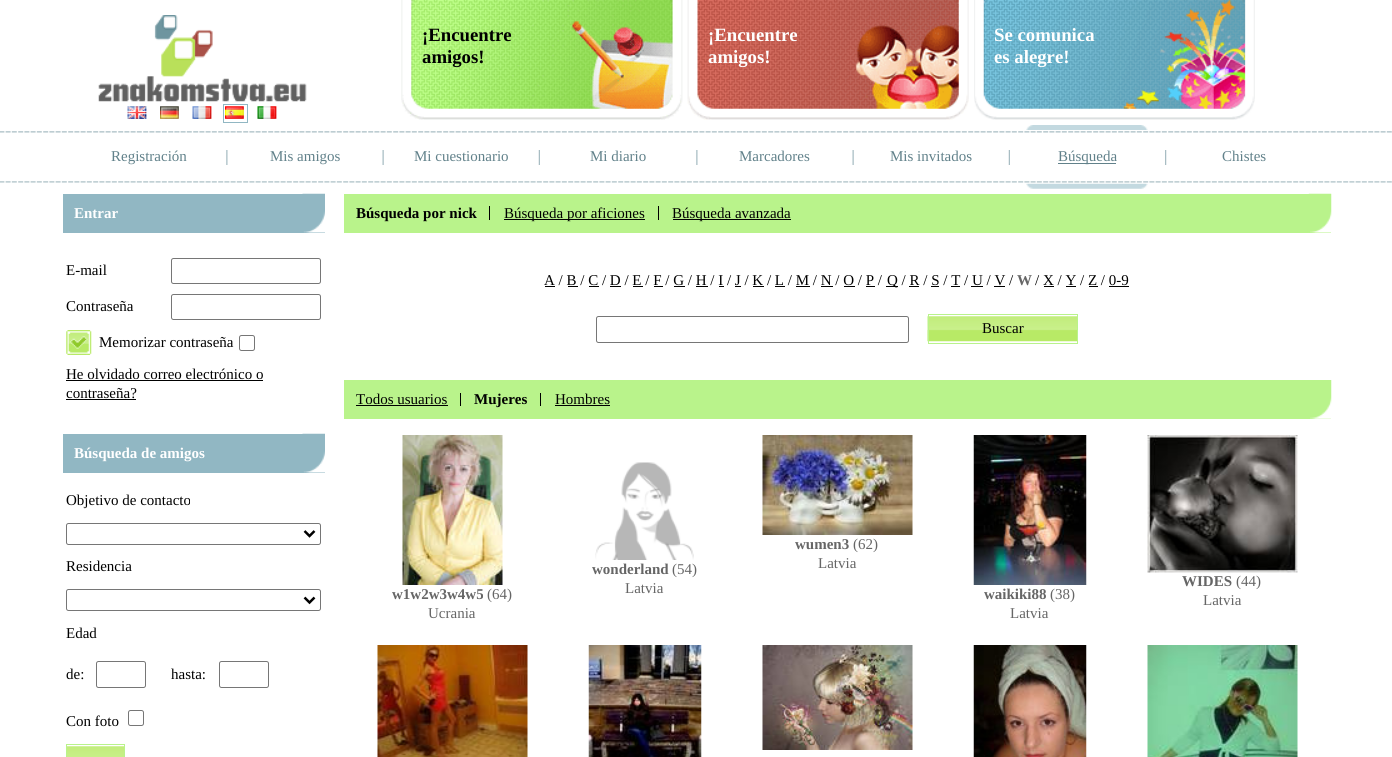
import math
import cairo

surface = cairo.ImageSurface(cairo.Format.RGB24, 1392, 757)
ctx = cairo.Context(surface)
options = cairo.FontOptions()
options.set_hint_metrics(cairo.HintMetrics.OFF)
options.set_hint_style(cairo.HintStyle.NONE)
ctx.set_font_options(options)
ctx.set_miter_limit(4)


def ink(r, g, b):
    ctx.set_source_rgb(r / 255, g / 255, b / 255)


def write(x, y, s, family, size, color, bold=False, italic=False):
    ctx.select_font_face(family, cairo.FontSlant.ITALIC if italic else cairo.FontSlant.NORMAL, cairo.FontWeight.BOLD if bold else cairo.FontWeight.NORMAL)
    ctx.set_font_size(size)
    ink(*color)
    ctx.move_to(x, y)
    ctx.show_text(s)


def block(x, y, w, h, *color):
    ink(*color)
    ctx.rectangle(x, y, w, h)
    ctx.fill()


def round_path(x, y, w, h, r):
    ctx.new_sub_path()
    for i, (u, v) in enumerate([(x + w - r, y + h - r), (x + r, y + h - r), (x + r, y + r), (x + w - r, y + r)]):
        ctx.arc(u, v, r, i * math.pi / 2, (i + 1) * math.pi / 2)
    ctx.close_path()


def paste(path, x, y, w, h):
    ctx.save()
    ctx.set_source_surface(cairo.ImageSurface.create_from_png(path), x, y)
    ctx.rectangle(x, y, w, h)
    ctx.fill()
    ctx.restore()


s1 = dict(family="Liberation Serif", size=18.75, color=(0, 0, 0), bold=True)
s2 = dict(family="Liberation Serif", size=18.75, color=(255, 255, 255), bold=True)
s3 = dict(family="Liberation Serif", size=15, color=(97, 129, 138))
s4 = dict(family="Liberation Serif", size=15, color=(255, 255, 255), bold=True)
s5 = dict(family="Liberation Serif", size=15, color=(0, 0, 0))
s6 = dict(family="Liberation Serif", size=15, color=(0, 0, 0), bold=True)
s7 = dict(family="Liberation Serif", size=15, color=(102, 102, 102), bold=True)
s8 = dict(family="Liberation Serif", size=15, color=(102, 102, 102))

ink(255, 255, 255)
ctx.paint()
paste("pic1.png", 98, 15, 209, 87)
paste("pic2.png", 127, 106, 20, 13)
paste("pic3.png", 160, 106, 19, 13)
paste("pic4.png", 192, 106, 20, 13)
ctx.rectangle(223.5, 104.5, 24, 18)
ink(145, 183, 195)
ctx.set_line_width(1)
ctx.stroke()
paste("pic5.png", 225, 106, 19, 13)
paste("pic6.png", 257, 106, 20, 13)
paste("pic7.png", 401, 0, 282, 120)
write(422, 41, "¡Encuentre", **s1)
write(422, 63, "amigos!", **s1)
paste("pic8.png", 687, 0, 282, 120)
write(708, 41, "¡Encuentre", **s2)
write(708, 63, "amigos!", **s2)
paste("pic9.png", 974, 0, 281, 120)
write(994, 41, "Se comunica", **s2)
write(994, 63, "es alegre!", **s2)
paste("pic10.png", 0, 131, 1392, 52)
paste("pic11.png", 1026, 125, 122, 5)
paste("pic12.png", 226, 150, 2, 15)
paste("pic13.png", 382, 150, 2, 15)
paste("pic14.png", 538, 150, 2, 15)
paste("pic12.png", 696, 150, 2, 15)
paste("pic13.png", 852, 150, 2, 15)
paste("pic14.png", 1008, 150, 2, 15)
paste("pic15.png", 1165, 150, 2, 15)
write(111, 161, "Registración", **s3)
write(270, 161, "Mis amigos", **s3)
write(414, 161, "Mi cuestionario", **s3)
write(590, 161, "Mi diario", **s3)
write(739, 161, "Marcadores", **s3)
write(890, 161, "Mis invitados", **s3)
block(1058, 163, 58, 1, 97, 129, 138)
write(1058, 161, "Búsqueda", **s3)
write(1222, 161, "Chistes", **s3)
paste("pic16.png", 1026, 183, 122, 6)
block(63, 194, 262, 39, 145, 183, 195)
paste("pic17.png", 302, 193, 23, 40)
write(74, 218, "Entrar", **s4)
write(66, 275, "E-mail", **s5)
round_path(171.5, 258.5, 149, 25, 2)
ink(118, 118, 118)
ctx.stroke()
write(66, 311, "Contraseña", **s5)
round_path(171.5, 294.5, 149, 25, 2)
ink(118, 118, 118)
ctx.stroke()
paste("pic18.png", 66, 330, 26, 25)
write(99, 347, "Memorizar contraseña", **s5)
round_path(239.5, 335.5, 15, 15, 2)
ink(118, 118, 118)
ctx.stroke()
write(66, 379, "He olvidado correo electrónico o", **s5)
block(66, 380, 197, 1, 0, 0, 0)
write(66, 398, "contraseña?", **s5)
block(66, 399, 70, 1, 0, 0, 0)
block(63, 434, 262, 39, 145, 183, 195)
paste("pic17.png", 302, 433, 23, 40)
write(74, 458, "Búsqueda de amigos", **s4)
write(66, 505, "Objetivo de contacto", **s5)
round_path(66.5, 523.5, 254, 21, 2)
ink(118, 118, 118)
ctx.stroke()
ctx.new_path()
ctx.move_to(304.5, 531)
ctx.line_to(309.5, 536)
ctx.line_to(314.5, 531)
ink(0, 0, 0)
ctx.set_line_width(2.5)
ctx.stroke()
write(66, 571, "Residencia", **s5)
round_path(66.5, 589.5, 254, 21, 2)
ink(118, 118, 118)
ctx.set_line_width(1)
ctx.stroke()
ctx.new_path()
ctx.move_to(304.5, 597.5)
ctx.line_to(309.5, 602.5)
ctx.line_to(314.5, 597.5)
ink(0, 0, 0)
ctx.set_line_width(2.5)
ctx.stroke()
write(66, 638, "Edad", **s5)
write(66, 679, "de:", **s5)
round_path(96.5, 661.5, 49, 26, 2)
ink(118, 118, 118)
ctx.set_line_width(1)
ctx.stroke()
write(171, 679, "hasta:", **s5)
round_path(219.5, 661.5, 49, 26, 2)
ink(118, 118, 118)
ctx.stroke()
write(66, 726, "Con foto", **s5)
round_path(128.5, 710.5, 15, 15, 2)
ink(118, 118, 118)
ctx.stroke()
paste("pic19.png", 67, 746, 57, 11)
ctx.rectangle(66.5, 744.5, 58, 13)
ink(185, 243, 139)
ctx.stroke()
block(344, 194, 987, 39, 185, 243, 139)
paste("pic20.png", 1308, 193, 24, 40)
write(356, 218, "Búsqueda por nick", **s6)
block(489, 206, 1, 14, 0, 0, 0)
block(504, 219, 141, 1, 0, 0, 0)
write(504, 218, "Búsqueda por aficiones", **s5)
block(658, 206, 1, 14, 0, 0, 0)
block(673, 219, 118, 1, 0, 0, 0)
write(672, 218, "Búsqueda avanzada", **s5)
write(544, 285, "A / B / C / D / E / F / G / H / I / J / K / L / M / N / O / P /", **s5)
block(545, 286, 10, 1, 0, 0, 0)
block(886, 286, 12, 1, 0, 0, 0)
write(887, 285, "Q / R / S / T / U / V /", **s5)
write(1017, 285, "W", **s7)
write(1035, 285, "/ X / Y / Z / 0-9", **s5)
block(568, 286, 10, 1, 0, 0, 0)
block(589, 286, 10, 1, 0, 0, 0)
block(610, 286, 11, 1, 0, 0, 0)
block(633, 286, 10, 1, 0, 0, 0)
block(654, 286, 9, 1, 0, 0, 0)
block(674, 286, 11, 1, 0, 0, 0)
block(696, 286, 12, 1, 0, 0, 0)
block(719, 286, 5, 1, 0, 0, 0)
block(735, 286, 6, 1, 0, 0, 0)
block(753, 286, 11, 1, 0, 0, 0)
block(775, 286, 10, 1, 0, 0, 0)
block(796, 286, 14, 1, 0, 0, 0)
block(821, 286, 12, 1, 0, 0, 0)
block(844, 286, 11, 1, 0, 0, 0)
block(866, 286, 9, 1, 0, 0, 0)
block(909, 286, 10, 1, 0, 0, 0)
block(931, 286, 8, 1, 0, 0, 0)
block(951, 286, 9, 1, 0, 0, 0)
block(971, 286, 12, 1, 0, 0, 0)
block(994, 286, 11, 1, 0, 0, 0)
block(1044, 286, 10, 1, 0, 0, 0)
block(1066, 286, 10, 1, 0, 0, 0)
block(1089, 286, 9, 1, 0, 0, 0)
block(1109, 286, 20, 1, 0, 0, 0)
round_path(596.5, 316.5, 312, 26, 2)
ink(118, 118, 118)
ctx.stroke()
paste("pic21.png", 927, 316, 150, 26)
ctx.rectangle(928.5, 314.5, 149, 29)
ink(185, 243, 139)
ctx.stroke()
write(982, 333, "Buscar", **s5)
block(344, 380, 987, 39, 185, 243, 139)
paste("pic22.png", 1310, 380, 22, 39)
write(356, 404, "Todos usuarios", **s5)
block(356, 405, 92, 1, 0, 0, 0)
block(460, 393, 1, 13, 0, 0, 0)
write(474, 404, "Mujeres", **s6)
block(540, 393, 1, 13, 0, 0, 0)
write(555, 404, "Hombres", **s5)
block(555, 405, 55, 1, 0, 0, 0)
paste("pic23.png", 762, 435, 151, 100)
write(795, 549, "wumen3", **s7)
write(853, 549, "(62)", **s8)
write(818, 568, "Latvia", **s8)
paste("pic24.png", 402, 435, 101, 150)
write(392, 599, "w1w2w3w4w5", **s7)
write(487, 599, "(64)", **s8)
write(428, 618, "Ucrania", **s8)
paste("pic25.png", 595, 462, 99, 98)
write(592, 574, "wonderland", **s7)
write(672, 574, "(54)", **s8)
write(625, 593, "Latvia", **s8)
paste("pic26.png", 973, 435, 114, 150)
write(984, 599, "waikiki88", **s7)
write(1050, 599, "(38)", **s8)
write(1010, 618, "Latvia", **s8)
paste("pic27.png", 1147, 435, 151, 138)
write(1182, 586, "WIDES", **s7)
write(1236, 586, "(44)", **s8)
write(1203, 605, "Latvia", **s8)
paste("pic28.png", 377, 645, 151, 112)
paste("pic29.png", 588, 645, 114, 112)
paste("pic30.png", 762, 645, 151, 105)
paste("pic31.png", 973, 645, 114, 112)
paste("pic32.png", 1147, 645, 151, 112)
surface.write_to_png("screenshot.png")
